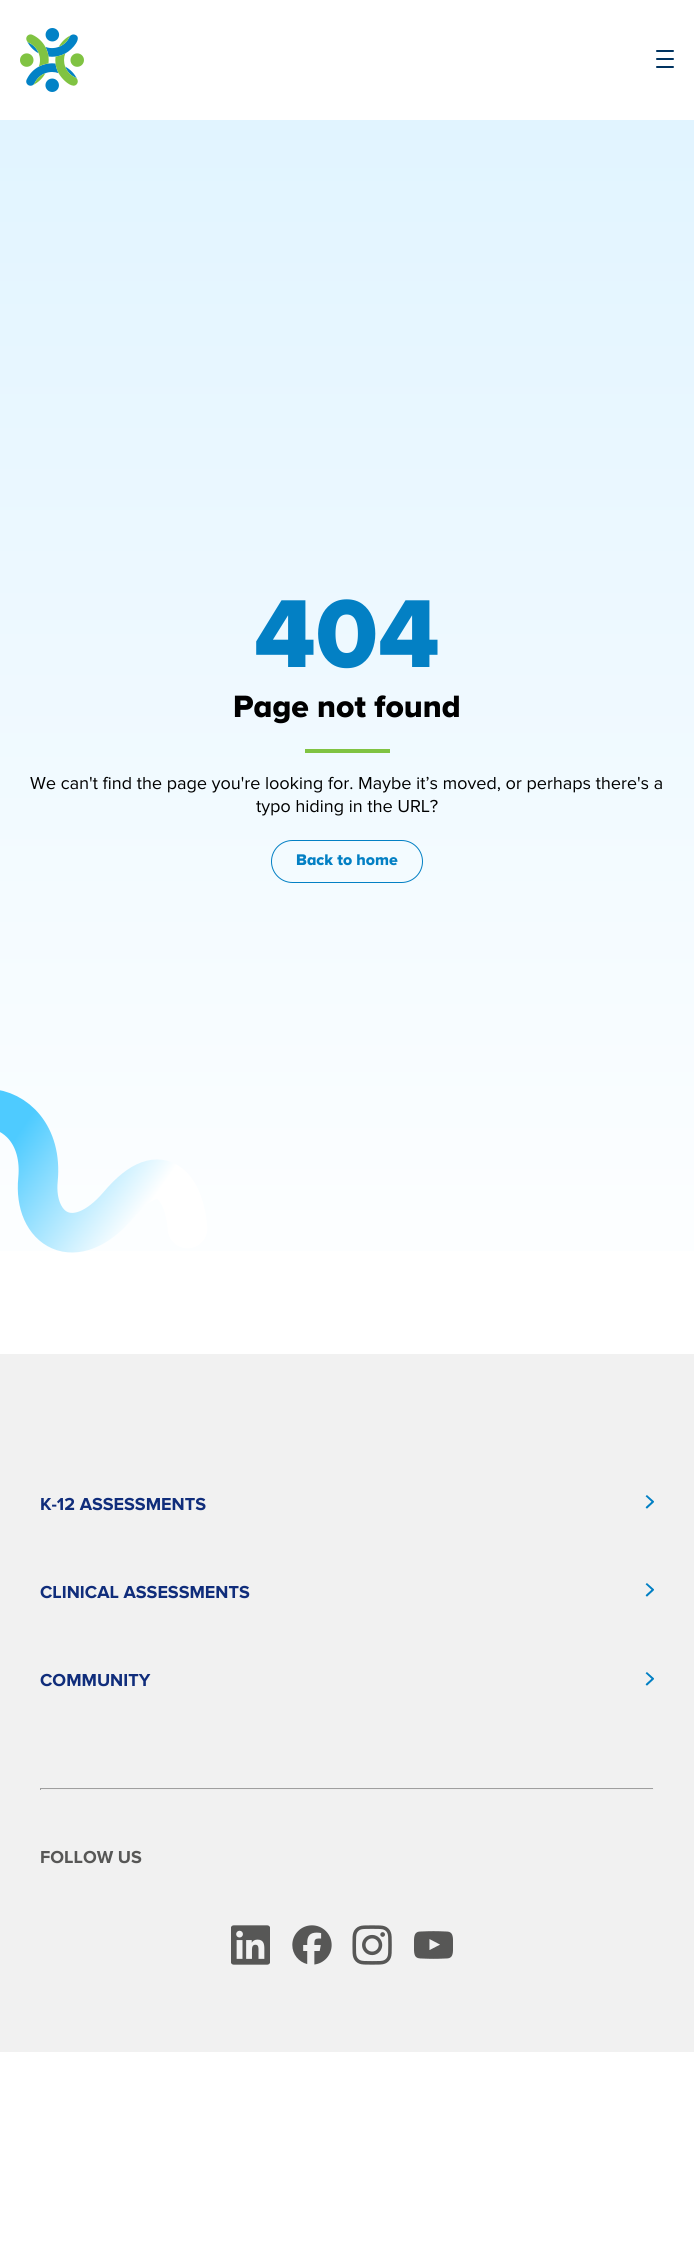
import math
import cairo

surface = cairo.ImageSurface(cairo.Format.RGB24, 694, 2256)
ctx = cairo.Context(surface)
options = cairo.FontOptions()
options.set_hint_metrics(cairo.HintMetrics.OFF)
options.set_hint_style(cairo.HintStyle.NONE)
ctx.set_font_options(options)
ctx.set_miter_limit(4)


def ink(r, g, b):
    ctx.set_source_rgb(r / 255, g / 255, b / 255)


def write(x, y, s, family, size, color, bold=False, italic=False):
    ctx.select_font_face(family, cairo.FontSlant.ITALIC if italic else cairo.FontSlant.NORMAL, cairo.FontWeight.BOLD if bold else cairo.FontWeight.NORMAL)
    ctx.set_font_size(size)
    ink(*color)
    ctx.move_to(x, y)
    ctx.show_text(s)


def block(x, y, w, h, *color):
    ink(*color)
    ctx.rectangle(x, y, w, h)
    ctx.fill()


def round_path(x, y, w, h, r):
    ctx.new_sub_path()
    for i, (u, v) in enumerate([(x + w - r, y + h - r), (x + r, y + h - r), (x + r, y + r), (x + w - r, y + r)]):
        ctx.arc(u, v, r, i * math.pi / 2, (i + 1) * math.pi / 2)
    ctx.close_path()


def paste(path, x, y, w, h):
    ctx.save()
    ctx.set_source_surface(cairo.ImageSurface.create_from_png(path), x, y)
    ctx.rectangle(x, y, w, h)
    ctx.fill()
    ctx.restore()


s1 = dict(family="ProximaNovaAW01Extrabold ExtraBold", size=100, color=(3, 128, 196))
s2 = dict(family="ProximaNovaAW01Extrabold ExtraBold", size=32, color=(0, 0, 0))
s3 = dict(family="ProximaNovaAW01Extrabold ExtraBold", size=16, color=(3, 128, 196))
s4 = dict(family="Proxima Nova", size=18, color=(16, 45, 123), bold=True)
s5 = dict(family="Proxima Nova", size=18, color=(87, 87, 86), bold=True)

ink(255, 255, 255)
ctx.paint()
paste("pic1.png", 20, 28, 64, 64)
ink(0, 51, 96)
round_path(656, 58, 18, 2, 1)
ctx.fill()
round_path(656, 50, 18, 2, 1)
ctx.fill()
round_path(656, 66, 18, 2, 1)
ctx.fill()
gradient = cairo.LinearGradient(347, 0, 347, 1354)
gradient.add_color_stop_rgba(0, 0.871, 0.953, 1, 1)
gradient.add_color_stop_rgba(1, 1, 1, 1, 1)
ctx.set_source(gradient)
ctx.rectangle(0, 120, 694, 1131)
ctx.fill()
write(254, 667, "404", **s1)
write(233, 717, "Page not found", **s2)
block(305, 749, 85, 4, 128, 195, 66)
paste("pic2.png", 30, 776, 632, 17)
paste("pic3.png", 256, 799, 182, 17)
round_path(271.5, 840.5, 151, 42, 21)
ink(3, 128, 196)
ctx.set_line_width(1)
ctx.stroke()
write(296, 865, "Back to home", **s3)
ctx.new_path()
ctx.move_to(-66.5, 1180.5)
ctx.curve_to(-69, 1079.5, 46.5, 1090, 38, 1179.5)
ctx.curve_to(33, 1229, 74.5, 1257, 119, 1204.5)
ctx.curve_to(163.5, 1152, 185, 1192, 187.5, 1228.5)
gradient = cairo.LinearGradient(7.4, 1149, 129, 1234)
gradient.add_color_stop_rgba(0, 0.306, 0.796, 1, 1)
gradient.add_color_stop_rgba(1, 1, 1, 1, 1)
ctx.set_source(gradient)
ctx.set_line_width(39.6)
ctx.set_line_cap(cairo.LineCap.ROUND)
ctx.stroke()
block(0, 1354, 694, 698, 241, 241, 241)
write(40, 1510, "K-12 ASSESSMENTS", **s4)
paste("pic4.png", 645, 1495, 9, 14)
write(40, 1598, "CLINICAL ASSESSMENTS", **s4)
paste("pic4.png", 645, 1583, 9, 14)
write(40, 1686, "COMMUNITY", **s4)
paste("pic4.png", 645, 1672, 9, 14)
block(40, 1788, 614, 1, 159, 159, 159)
block(653, 1788, 1, 2, 238, 238, 238)
block(40, 1789, 614, 1, 238, 238, 238)
block(40, 1788, 1, 2, 159, 159, 159)
write(40, 1863, "FOLLOW US", **s5)
paste("pic5.png", 231, 1925, 39, 40)
paste("pic6.png", 292, 1925, 40, 40)
paste("pic7.png", 352, 1925, 40, 40)
paste("pic8.png", 414, 1931, 39, 28)
surface.write_to_png("screenshot.png")
